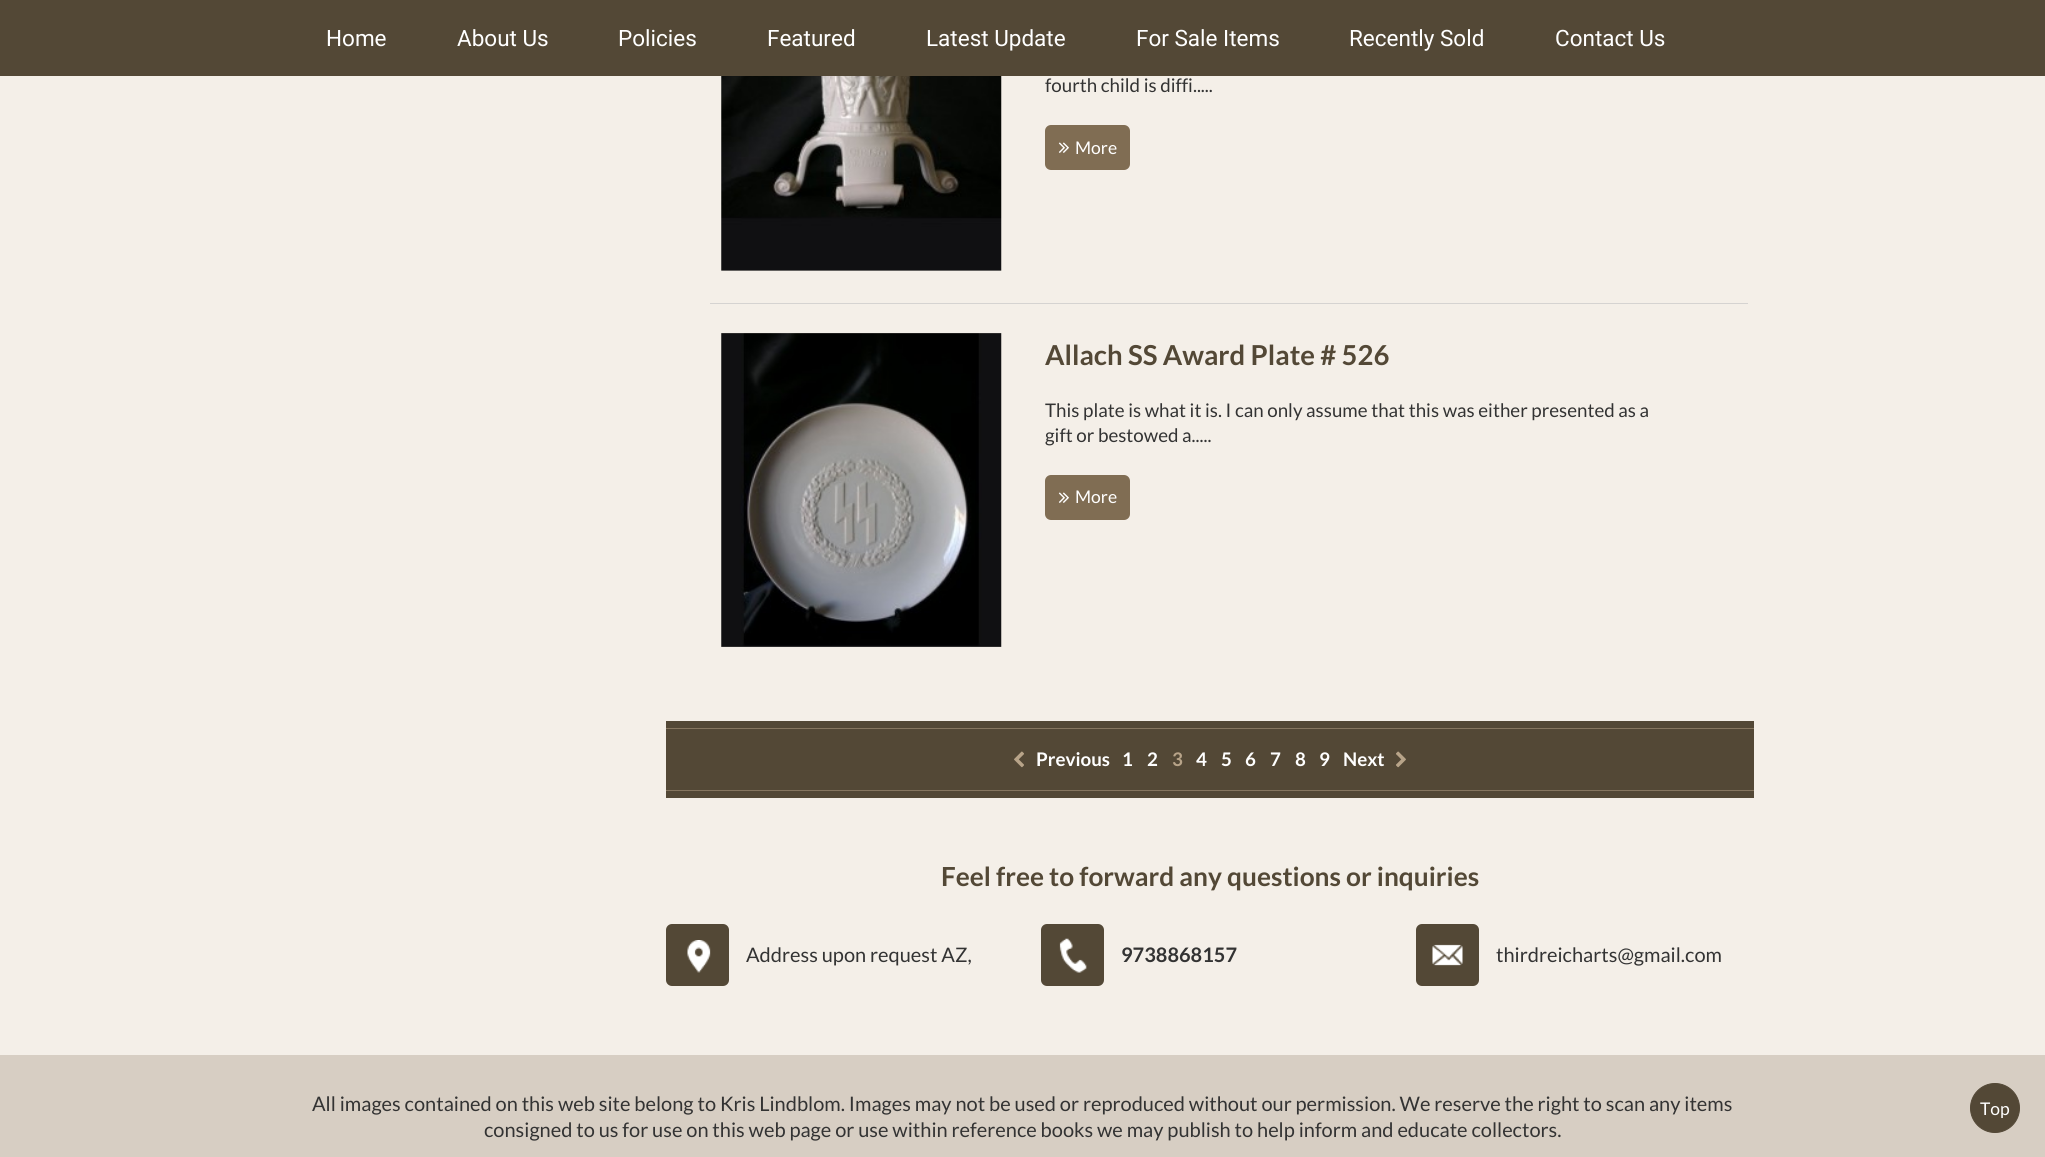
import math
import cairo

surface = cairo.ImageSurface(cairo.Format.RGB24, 2045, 1157)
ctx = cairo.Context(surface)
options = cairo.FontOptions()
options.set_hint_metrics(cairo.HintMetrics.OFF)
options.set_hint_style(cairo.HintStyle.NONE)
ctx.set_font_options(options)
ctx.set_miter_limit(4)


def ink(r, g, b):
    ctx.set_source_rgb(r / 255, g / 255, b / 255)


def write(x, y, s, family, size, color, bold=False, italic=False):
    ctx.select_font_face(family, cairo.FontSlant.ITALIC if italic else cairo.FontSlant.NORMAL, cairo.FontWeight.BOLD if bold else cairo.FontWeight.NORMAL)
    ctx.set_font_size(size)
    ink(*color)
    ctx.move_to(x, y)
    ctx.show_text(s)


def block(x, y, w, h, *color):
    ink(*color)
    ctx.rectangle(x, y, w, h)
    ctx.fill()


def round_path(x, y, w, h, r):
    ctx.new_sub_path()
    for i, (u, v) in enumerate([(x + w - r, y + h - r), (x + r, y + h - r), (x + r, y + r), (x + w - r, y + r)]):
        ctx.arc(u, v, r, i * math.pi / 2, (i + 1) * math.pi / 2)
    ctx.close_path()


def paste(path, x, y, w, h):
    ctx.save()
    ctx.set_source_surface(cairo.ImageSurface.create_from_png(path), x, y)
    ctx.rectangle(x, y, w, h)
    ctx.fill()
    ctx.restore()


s1 = dict(family="Roboto", size=22.5, color=(255, 255, 255))
s2 = dict(family="Lato", size=18.75, color=(51, 51, 51))
s3 = dict(family="Lato", size=17.5, color=(255, 255, 255))
s4 = dict(family="Lato", size=27.5, color=(83, 72, 54), bold=True)
s5 = dict(family="Lato", size=18.75, color=(255, 255, 255), bold=True)
s6 = dict(family="Lato", size=18.75, color=(184, 164, 137), bold=True)
s7 = dict(family="Lato", size=26.25, color=(83, 72, 54), bold=True)
s8 = dict(family="Lato", size=20, color=(51, 51, 51))
s9 = dict(family="Lato", size=20, color=(51, 51, 51), bold=True)

ink(244, 239, 232)
ctx.paint()
block(0, 0, 2045, 76, 83, 72, 54)
write(326, 46, "Home", **s1)
write(457, 46, "About Us", **s1)
write(618, 46, "Policies", **s1)
write(767, 46, "Featured", **s1)
write(926, 46, "Latest Update", **s1)
write(1136, 46, "For Sale Items", **s1)
write(1349, 46, "Recently Sold", **s1)
write(1555, 46, "Contact Us", **s1)
paste("pic1.png", 721, 76, 281, 195)
write(1045, 92, "fourth child is diffi.....", **s2)
ink(128, 109, 83)
round_path(1045, 125, 85, 45, 6)
ctx.fill()
paste("pic2.png", 1058, 142, 11, 11)
write(1075, 154, "More", **s3)
block(710, 303, 1038, 1, 213, 211, 209)
paste("pic3.png", 721, 333, 281, 314)
write(1045, 365, "Allach SS Award Plate # 526", **s4)
write(1045, 417, "This plate is what it is. I can only assume that this was either presented as a", **s2)
write(1045, 442, "gift or bestowed a.....", **s2)
ink(128, 109, 83)
round_path(1045, 475, 85, 45, 6)
ctx.fill()
paste("pic2.png", 1058, 492, 11, 11)
write(1075, 503, "More", **s3)
block(666, 721, 1088, 77, 83, 72, 54)
block(666, 728, 1088, 1, 134, 118, 96)
paste("pic4.png", 1014, 751, 10, 17)
write(1036, 766, "Previous", **s5)
write(1122, 766, "1", **s5)
write(1147, 766, "2", **s5)
write(1172, 766, "3", **s6)
write(1196, 766, "4", **s5)
write(1221, 766, "5", **s5)
write(1245, 766, "6", **s5)
write(1270, 766, "7", **s5)
write(1295, 766, "8", **s5)
write(1319, 766, "9", **s5)
write(1343, 766, "Next", **s5)
paste("pic5.png", 1396, 751, 10, 17)
block(666, 790, 1088, 1, 134, 118, 96)
write(941, 886, "Feel free to forward any questions or inquiries", **s7)
round_path(666, 924, 63, 62, 6)
ctx.fill()
paste("pic6.png", 687, 940, 24, 33)
write(746, 962, "Address upon request AZ,", **s8)
ink(83, 72, 54)
round_path(1041, 924, 63, 62, 6)
ctx.fill()
paste("pic7.png", 1059, 938, 28, 35)
write(1121, 962, "9738868157", **s9)
ink(83, 72, 54)
round_path(1416, 924, 63, 62, 6)
ctx.fill()
paste("pic8.png", 1432, 944, 31, 22)
write(1496, 962, "thirdreicharts@gmail.com", **s8)
block(0, 1055, 2045, 102, 215, 206, 195)
write(312, 1111, "All images contained on this web site belong to Kris Lindblom. Images may not be used or reproduced without our permission. We reserve the right to scan any items", **s8)
write(484, 1137, "consigned to us for use on this web page or use within reference books we may publish to help inform and educate collectors.", **s8)
ink(83, 72, 54)
ctx.new_path()
ctx.arc(1995, 1108, 24.5, 0, 2 * math.pi)
ctx.fill_preserve()
ctx.set_line_width(1)
ctx.stroke()
write(1980, 1115, "Top", **s3)
surface.write_to_png("screenshot.png")
